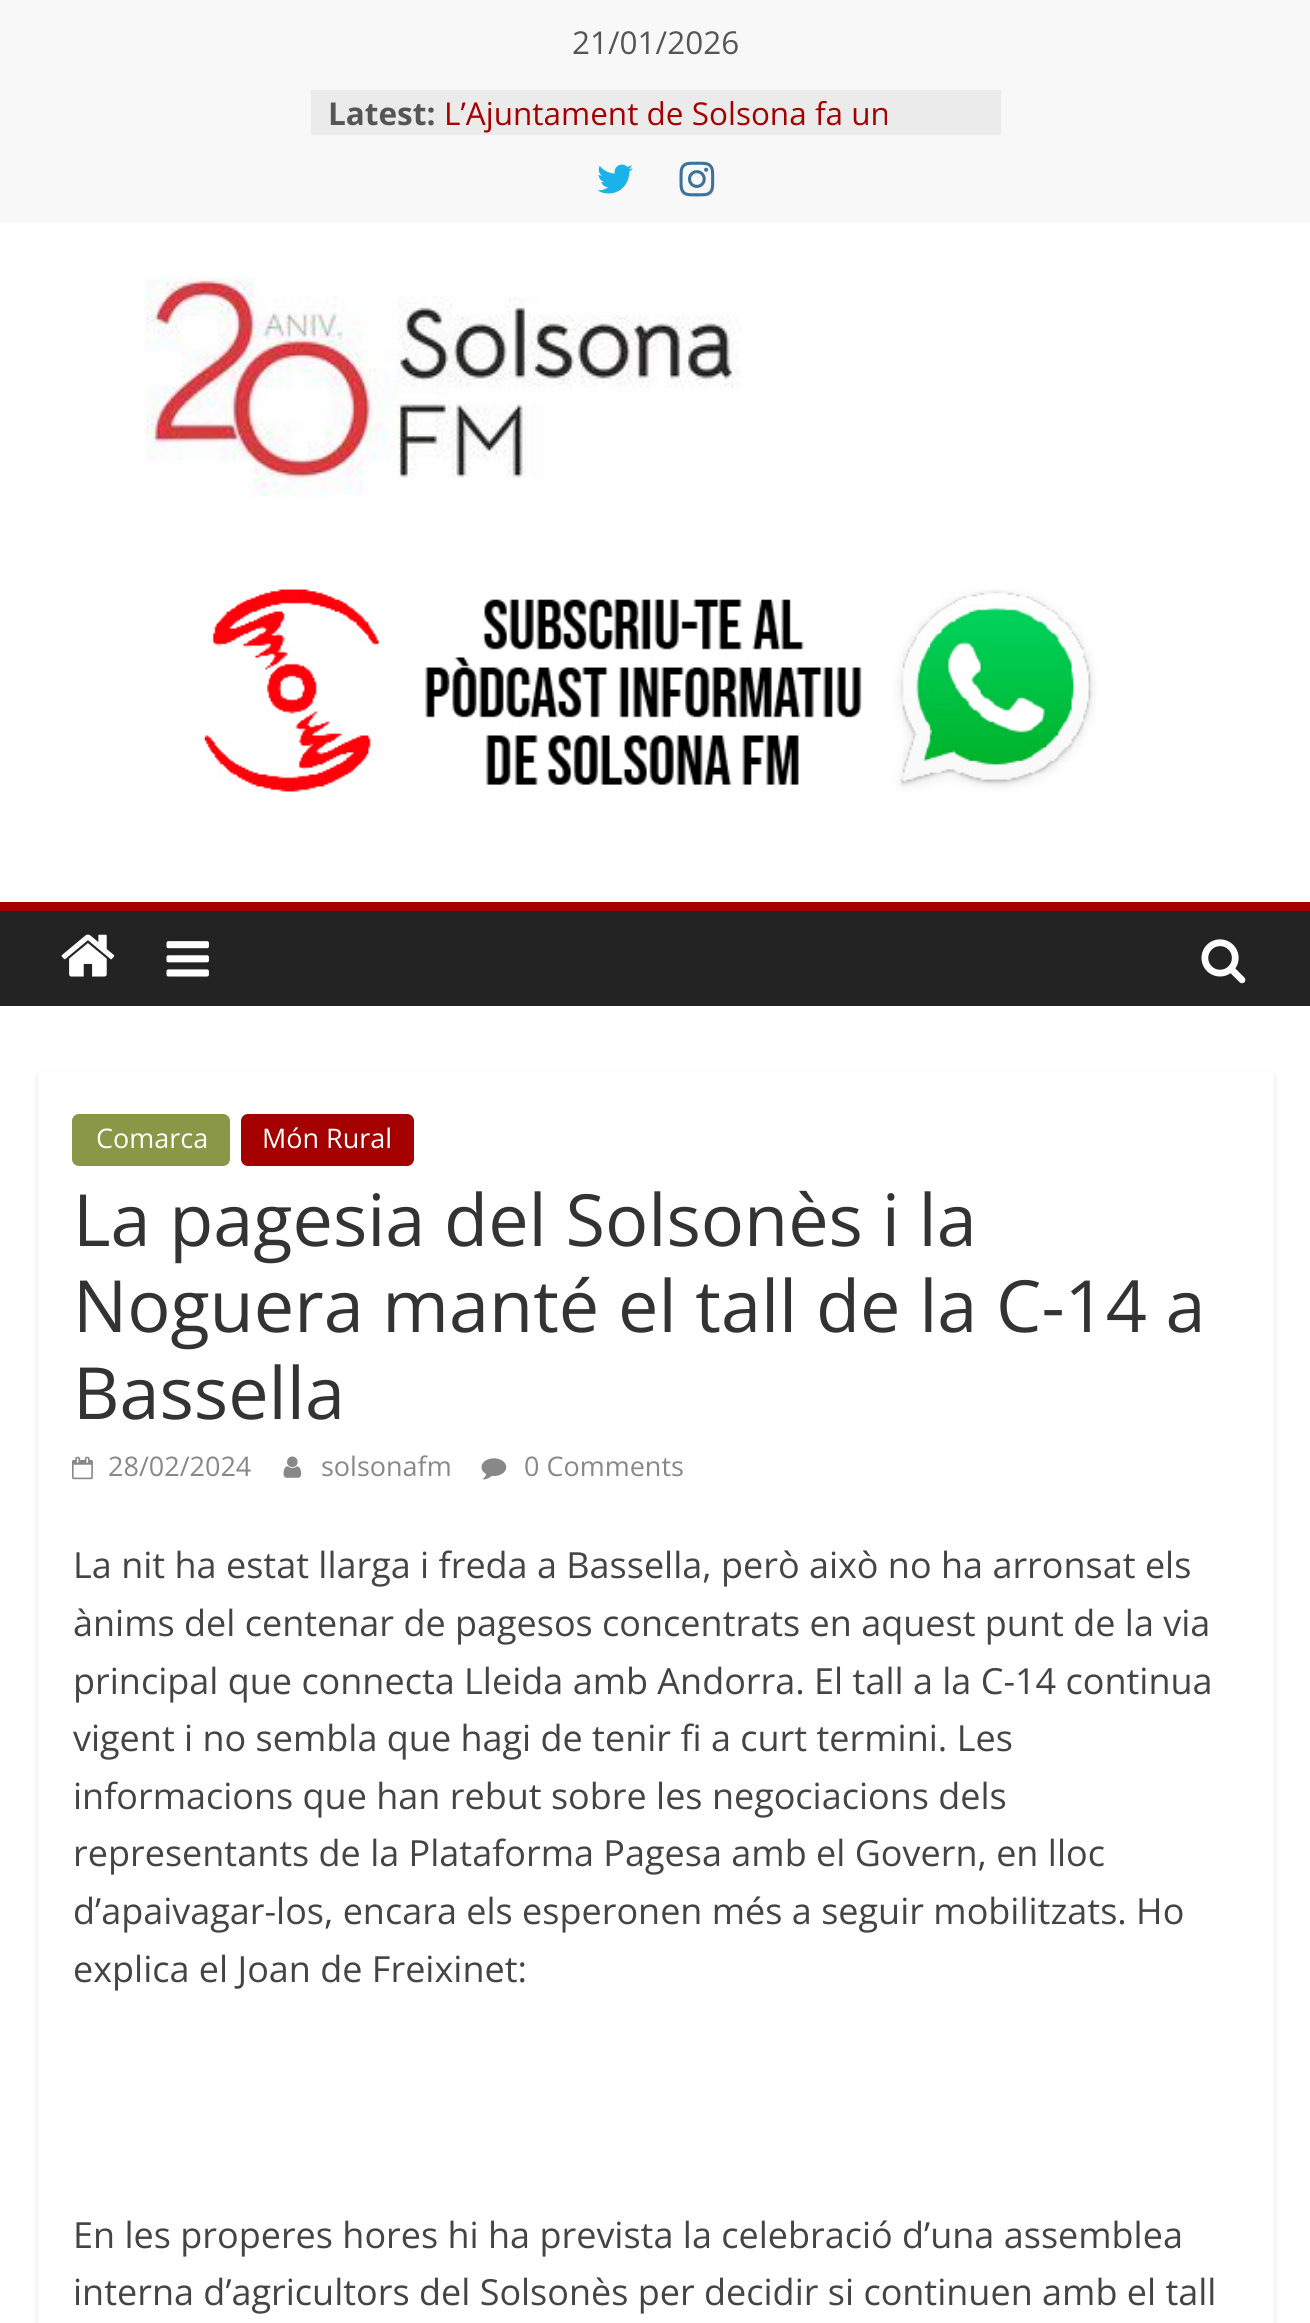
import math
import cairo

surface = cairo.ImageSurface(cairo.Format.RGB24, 1310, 2323)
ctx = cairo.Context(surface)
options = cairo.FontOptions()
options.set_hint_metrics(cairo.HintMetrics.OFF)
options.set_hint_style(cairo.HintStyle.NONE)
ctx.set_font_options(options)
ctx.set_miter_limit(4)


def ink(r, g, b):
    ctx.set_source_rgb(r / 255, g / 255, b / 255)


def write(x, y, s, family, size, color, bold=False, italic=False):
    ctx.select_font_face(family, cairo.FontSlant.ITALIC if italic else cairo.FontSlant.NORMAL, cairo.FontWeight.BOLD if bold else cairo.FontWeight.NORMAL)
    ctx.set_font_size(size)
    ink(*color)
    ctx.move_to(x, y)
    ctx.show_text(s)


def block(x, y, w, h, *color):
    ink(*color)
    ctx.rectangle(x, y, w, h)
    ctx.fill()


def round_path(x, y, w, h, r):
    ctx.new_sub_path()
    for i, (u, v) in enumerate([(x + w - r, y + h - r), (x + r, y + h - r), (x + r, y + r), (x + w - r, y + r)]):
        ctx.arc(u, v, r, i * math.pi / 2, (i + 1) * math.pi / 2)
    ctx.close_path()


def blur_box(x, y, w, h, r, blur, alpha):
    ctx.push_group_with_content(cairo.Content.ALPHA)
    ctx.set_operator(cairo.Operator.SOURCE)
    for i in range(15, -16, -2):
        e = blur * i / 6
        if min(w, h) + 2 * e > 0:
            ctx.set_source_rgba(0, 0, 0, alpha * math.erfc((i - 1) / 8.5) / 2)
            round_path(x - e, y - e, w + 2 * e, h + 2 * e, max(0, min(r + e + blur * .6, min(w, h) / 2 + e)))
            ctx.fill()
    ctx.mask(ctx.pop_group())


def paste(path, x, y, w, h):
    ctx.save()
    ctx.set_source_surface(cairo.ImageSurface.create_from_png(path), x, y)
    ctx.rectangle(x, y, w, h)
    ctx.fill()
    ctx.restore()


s1 = dict(family="Open Sans", size=31.5, color=(85, 85, 85))
s2 = dict(family="Open Sans", size=31.5, color=(85, 85, 85), bold=True)
s3 = dict(family="Open Sans", size=31.5, color=(165, 0, 0))
s4 = dict(family="Open Sans", size=27, color=(255, 255, 255))
s5 = dict(family="Open Sans", size=72, color=(51, 51, 51))
s6 = dict(family="Open Sans", size=27, color=(136, 136, 136))
s7 = dict(family="Open Sans", size=36, color=(68, 68, 68))

ink(255, 255, 255)
ctx.paint()
ink(0, 0, 0)
blur_box(0, 0, 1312, 221, 0, 2, 0.1)
block(0, 0, 1310, 221, 248, 248, 248)
write(572, 54, "21/01/2026", **s1)
block(311, 90, 690, 45, 235, 235, 236)
write(328, 125, "Latest:", **s2)
write(444, 125, "L’Ajuntament de Solsona fa un", **s3)
paste("pic1.png", 597, 164, 36, 30)
paste("pic2.png", 679, 161, 36, 36)
paste("pic3.png", 144, 277, 597, 221)
paste("pic4.png", 204, 589, 893, 203)
block(0, 911, 1310, 95, 35, 35, 35)
block(0, 902, 1310, 9, 165, 0, 0)
paste("pic5.png", 61, 934, 54, 43)
paste("pic6.png", 166, 941, 43, 36)
paste("pic7.png", 1201, 939, 45, 45)
ctx.save()
ctx.set_fill_rule(cairo.FillRule.EVEN_ODD)
ctx.new_path()
ctx.move_to(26, 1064)
ctx.line_to(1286, 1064)
ctx.line_to(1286, 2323)
ctx.line_to(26, 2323)
ctx.close_path()
ctx.move_to(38, 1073)
ctx.line_to(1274, 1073)
ctx.line_to(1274, 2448)
ctx.line_to(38, 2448)
ctx.close_path()
ctx.clip()
ink(0, 0, 0)
blur_box(38, 1076, 1236, 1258, 0, 3.5, 0.1)
ctx.restore()
ink(138, 151, 71)
round_path(72, 1114, 158, 52, 7)
ctx.fill()
write(96, 1148, "Comarca", **s4)
ink(165, 0, 0)
round_path(241, 1114, 173, 52, 7)
ctx.fill()
write(262, 1148, "Món Rural", **s4)
write(73, 1246, "La pagesia del Solsonès i la", **s5)
write(73, 1332, "Noguera manté el tall de la C-14 a", **s5)
write(73, 1419, "Bassella", **s5)
paste("pic8.png", 72, 1456, 21, 24)
write(108, 1476, "28/02/2024", **s6)
paste("pic9.png", 283, 1456, 19, 22)
write(321, 1476, "solsonafm", **s6)
paste("pic10.png", 481, 1458, 26, 22)
write(524, 1476, "0 Comments", **s6)
write(73, 1578, "La nit ha estat llarga i freda a Bassella, però això no ha arronsat els", **s7)
write(73, 1636, "ànims del centenar de pagesos concentrats en aquest punt de la via", **s7)
write(73, 1694, "principal que connecta Lleida amb Andorra. El tall a la C-14 continua", **s7)
write(73, 1751, "vigent i no sembla que hagi de tenir fi a curt termini. Les", **s7)
write(73, 1809, "informacions que han rebut sobre les negociacions dels", **s7)
write(73, 1866, "representants de la Plataforma Pagesa amb el Govern, en lloc", **s7)
write(73, 1924, "d’apaivagar-los, encara els esperonen més a seguir mobilitzats. Ho", **s7)
write(73, 1982, "explica el Joan de Freixinet:", **s7)
write(73, 2248, "En les properes hores hi ha prevista la celebració d’una assemblea", **s7)
write(73, 2305, "interna d’agricultors del Solsonès per decidir si continuen amb el tall", **s7)
surface.write_to_png("screenshot.png")
